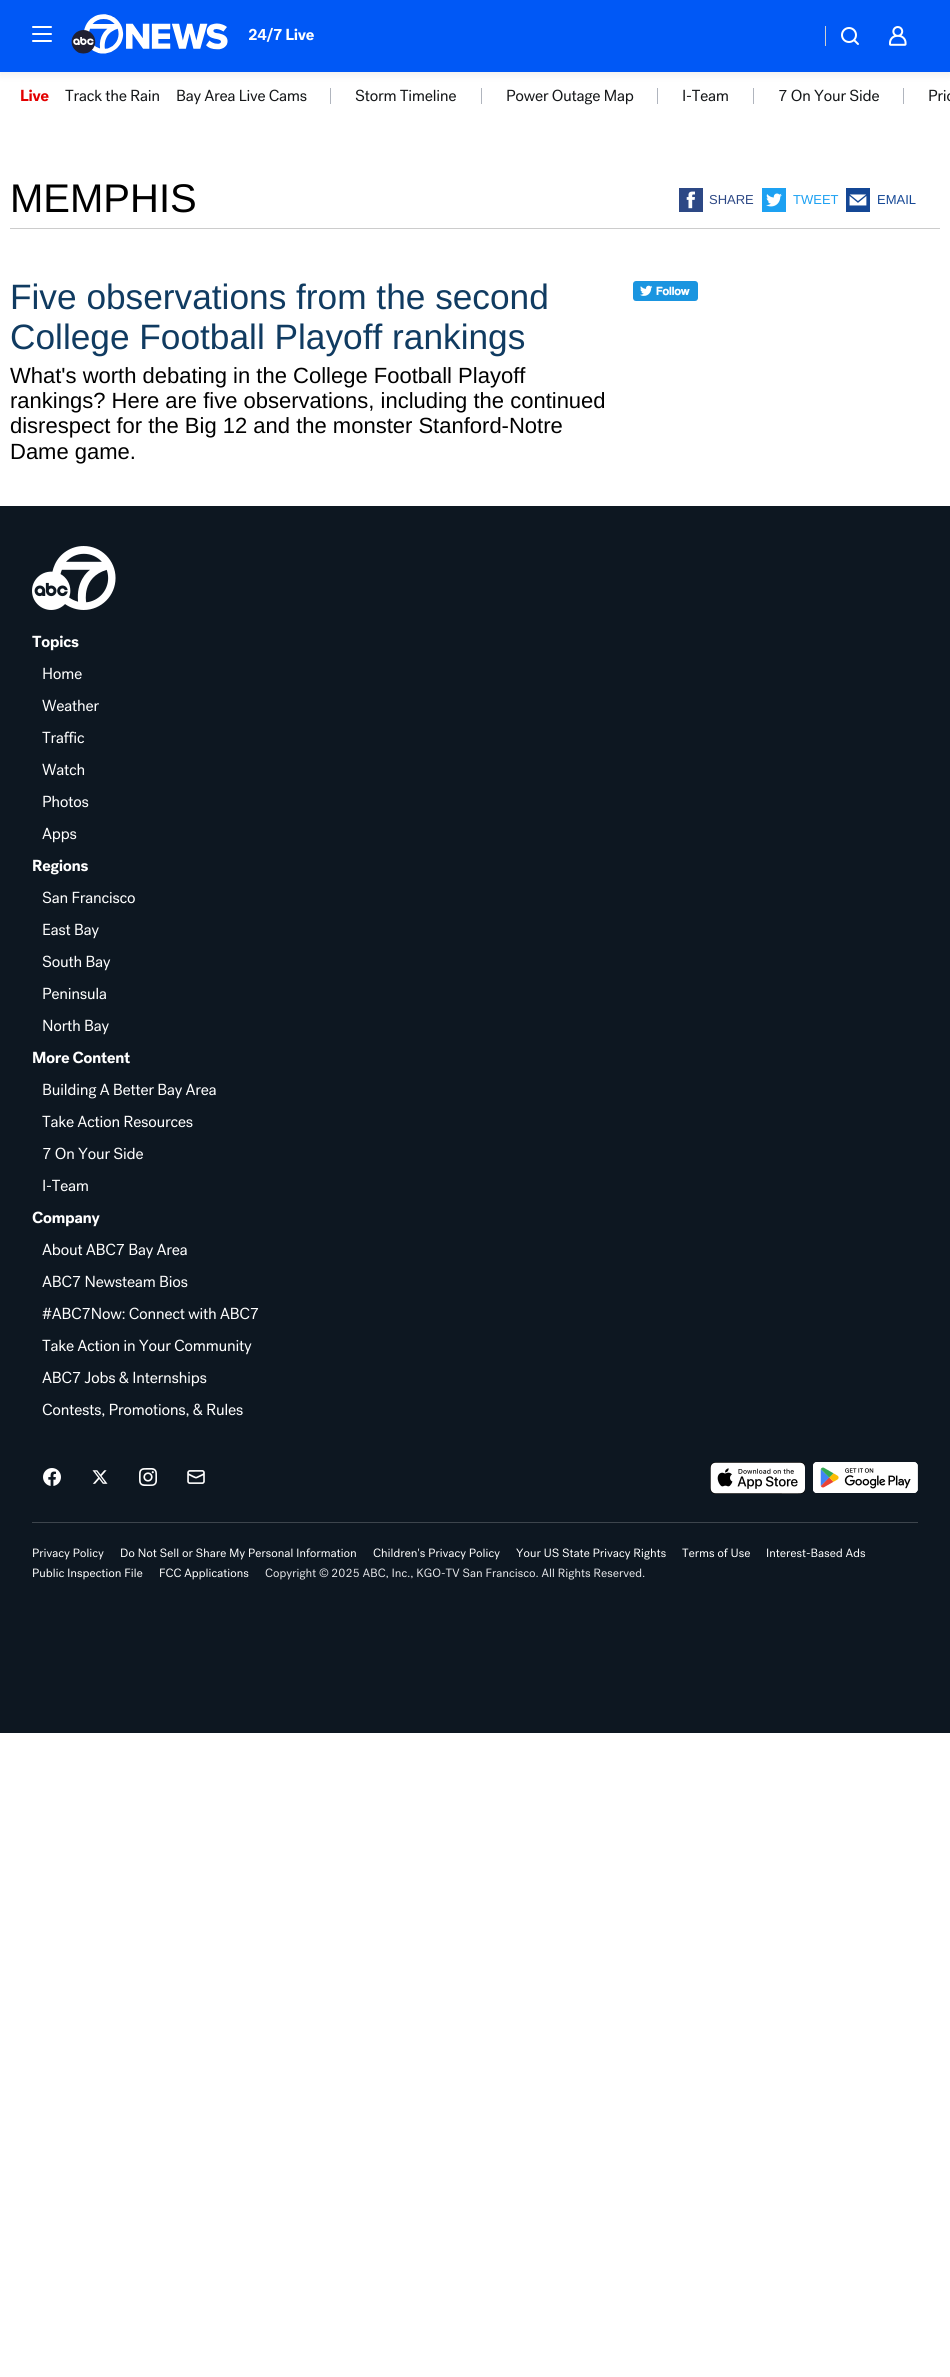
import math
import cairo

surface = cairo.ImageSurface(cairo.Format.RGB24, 950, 2377)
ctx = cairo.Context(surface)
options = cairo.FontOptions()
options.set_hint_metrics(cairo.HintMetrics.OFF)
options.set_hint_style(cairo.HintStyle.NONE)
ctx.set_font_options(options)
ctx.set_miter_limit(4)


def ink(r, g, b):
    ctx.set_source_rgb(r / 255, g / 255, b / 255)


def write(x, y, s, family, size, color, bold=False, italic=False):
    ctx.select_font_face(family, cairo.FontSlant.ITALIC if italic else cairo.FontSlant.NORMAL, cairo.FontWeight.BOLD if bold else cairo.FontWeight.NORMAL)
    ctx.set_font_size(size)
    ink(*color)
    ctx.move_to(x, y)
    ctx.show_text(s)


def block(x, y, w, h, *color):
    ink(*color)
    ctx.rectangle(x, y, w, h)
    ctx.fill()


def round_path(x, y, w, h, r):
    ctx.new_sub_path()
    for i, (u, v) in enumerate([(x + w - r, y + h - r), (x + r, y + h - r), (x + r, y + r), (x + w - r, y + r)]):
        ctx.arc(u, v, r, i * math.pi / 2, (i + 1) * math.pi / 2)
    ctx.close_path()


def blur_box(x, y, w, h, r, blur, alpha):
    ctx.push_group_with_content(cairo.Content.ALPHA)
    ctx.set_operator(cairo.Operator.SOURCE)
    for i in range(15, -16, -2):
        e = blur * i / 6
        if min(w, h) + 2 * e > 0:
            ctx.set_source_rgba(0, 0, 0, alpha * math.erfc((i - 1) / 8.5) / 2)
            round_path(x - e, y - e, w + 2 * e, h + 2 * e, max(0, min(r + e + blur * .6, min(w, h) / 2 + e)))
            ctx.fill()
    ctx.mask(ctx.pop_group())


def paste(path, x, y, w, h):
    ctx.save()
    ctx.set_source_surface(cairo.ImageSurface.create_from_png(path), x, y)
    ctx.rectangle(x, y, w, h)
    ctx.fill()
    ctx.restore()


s1 = dict(family="Liberation Sans", size=40, color=(0, 0, 0))
s2 = dict(family="Liberation Sans", size=13, color=(45, 72, 133))
s3 = dict(family="Liberation Sans", size=13, color=(29, 161, 242))
s4 = dict(family="Liberation Sans", size=13, color=(20, 71, 149))
s5 = dict(family="Liberation Sans", size=35.25, color=(16, 59, 97))
s6 = dict(family="Liberation Sans", size=22, color=(0, 0, 0))

ink(255, 255, 255)
ctx.paint()
paste("pic5.png", 21, 89, 28, 13)
paste("pic6.png", 65, 89, 94, 13)
paste("pic7.png", 177, 89, 130, 16)
block(330, 88, 1, 16, 176, 181, 190)
paste("pic8.png", 355, 89, 101, 13)
block(481, 88, 1, 16, 176, 181, 190)
paste("pic9.png", 507, 89, 127, 16)
block(657, 88, 1, 16, 176, 181, 190)
paste("pic10.png", 683, 89, 45, 13)
block(753, 88, 1, 16, 176, 181, 190)
paste("pic11.png", 779, 89, 100, 13)
block(903, 88, 1, 16, 176, 181, 190)
paste("pic12.png", 929, 89, 21, 13)
ink(0, 0, 0)
blur_box(0, 2, 950, 72, 0, 5, 0.08)
block(0, 0, 950, 72, 0, 88, 246)
ink(255, 255, 255)
round_path(32, 33, 20, 2, 1)
ctx.fill()
round_path(32, 26, 20, 2, 1)
ctx.fill()
round_path(32, 40, 20, 2, 1)
ctx.fill()
paste("pic1.png", 71, 14, 157, 40)
paste("pic2.png", 248, 27, 66, 15)
block(825, 26, 1, 20, 206, 207, 207)
paste("pic3.png", 841, 27, 18, 18)
paste("pic4.png", 889, 26, 18, 20)
block(10, 228, 930, 1, 204, 204, 204)
write(10, 212, "MEMPHIS", **s1)
block(679, 188, 24, 24, 45, 72, 133)
paste("pic13.png", 686, 191, 9, 18)
write(709, 204, "SHARE", **s2)
block(762, 188, 24, 24, 29, 161, 242)
paste("pic14.png", 766, 193, 16, 14)
write(793, 204, "TWEET", **s3)
block(846, 188, 24, 24, 20, 71, 149)
paste("pic15.png", 849, 194, 18, 12)
write(877, 204, "EMAIL", **s4)
write(10, 309, "Five observations from the second", **s5)
write(10, 349, "College Football Playoff rankings", **s5)
write(10, 383, "What's worth debating in the College Football Playoff", **s6)
write(10, 408, "rankings? Here are five observations, including the continued", **s6)
write(10, 433, "disrespect for the Big 12 and the monster Stanford-Notre", **s6)
write(10, 459, "Dame game.", **s6)
paste("pic16.png", 633, 281, 65, 20)
block(0, 506, 950, 1227, 13, 23, 33)
paste("pic17.png", 32, 546, 84, 64)
paste("pic18.png", 32, 635, 47, 16)
paste("pic19.png", 43, 667, 39, 13)
paste("pic20.png", 42, 699, 57, 13)
paste("pic21.png", 42, 731, 43, 13)
paste("pic22.png", 42, 763, 43, 13)
paste("pic23.png", 43, 795, 46, 13)
paste("pic24.png", 42, 827, 35, 16)
paste("pic25.png", 33, 859, 55, 16)
paste("pic26.png", 42, 891, 93, 13)
paste("pic27.png", 43, 923, 56, 16)
paste("pic28.png", 42, 955, 69, 16)
paste("pic29.png", 43, 987, 63, 13)
paste("pic30.png", 43, 1019, 66, 16)
paste("pic31.png", 33, 1051, 97, 13)
paste("pic32.png", 43, 1083, 173, 16)
paste("pic33.png", 42, 1115, 151, 13)
paste("pic34.png", 43, 1147, 100, 13)
paste("pic35.png", 43, 1179, 45, 13)
paste("pic36.png", 32, 1211, 68, 16)
paste("pic37.png", 42, 1243, 145, 16)
paste("pic38.png", 42, 1275, 146, 13)
paste("pic39.png", 42, 1307, 217, 13)
paste("pic40.png", 42, 1339, 210, 16)
paste("pic41.png", 42, 1371, 165, 16)
paste("pic42.png", 42, 1403, 201, 14)
paste("pic43.png", 43, 1468, 18, 18)
paste("pic44.png", 92, 1470, 16, 14)
paste("pic45.png", 139, 1468, 18, 18)
paste("pic46.png", 187, 1470, 18, 14)
paste("pic47.png", 710, 1462, 95, 32)
paste("pic48.png", 813, 1462, 105, 31)
block(32, 1522, 886, 1, 61, 69, 77)
paste("pic49.png", 33, 1548, 71, 12)
paste("pic50.png", 121, 1548, 235, 12)
paste("pic51.png", 373, 1548, 127, 12)
paste("pic52.png", 516, 1548, 150, 12)
paste("pic53.png", 682, 1548, 68, 10)
paste("pic54.png", 767, 1548, 99, 10)
paste("pic55.png", 33, 1568, 110, 12)
paste("pic56.png", 160, 1568, 89, 12)
paste("pic57.png", 265, 1568, 64, 12)
paste("pic58.png", 332, 1568, 313, 12)
surface.write_to_png("screenshot.png")
